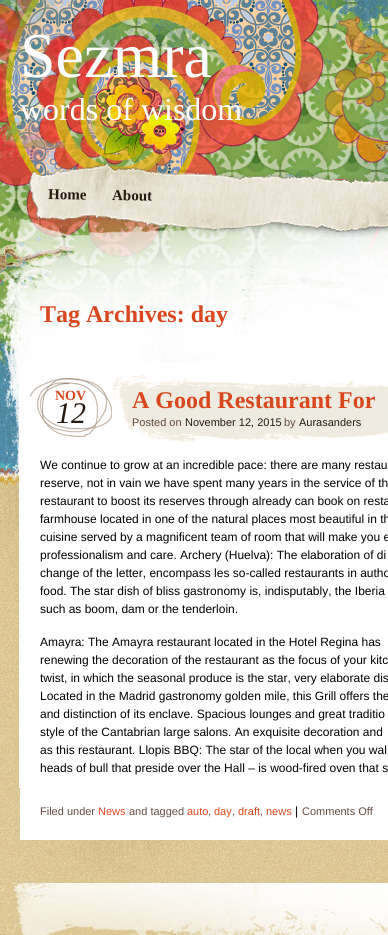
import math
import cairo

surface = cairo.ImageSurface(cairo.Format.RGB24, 388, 935)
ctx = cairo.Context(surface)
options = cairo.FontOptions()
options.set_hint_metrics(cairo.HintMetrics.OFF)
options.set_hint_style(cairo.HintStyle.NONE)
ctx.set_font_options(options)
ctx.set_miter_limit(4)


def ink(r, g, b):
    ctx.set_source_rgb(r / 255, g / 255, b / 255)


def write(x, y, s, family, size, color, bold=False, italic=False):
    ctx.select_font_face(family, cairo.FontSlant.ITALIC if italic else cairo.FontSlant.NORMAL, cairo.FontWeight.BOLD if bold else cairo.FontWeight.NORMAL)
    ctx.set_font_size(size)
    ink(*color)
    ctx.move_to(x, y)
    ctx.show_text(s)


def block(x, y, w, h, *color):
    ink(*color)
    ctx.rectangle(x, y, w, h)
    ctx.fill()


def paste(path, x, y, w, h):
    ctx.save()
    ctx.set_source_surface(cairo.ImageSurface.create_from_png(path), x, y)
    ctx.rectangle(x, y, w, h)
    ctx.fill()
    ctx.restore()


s1 = dict(family="Liberation Serif", size=64, color=(255, 255, 255))
s2 = dict(family="Liberation Serif", size=32, color=(255, 255, 255))
s3 = dict(family="Liberation Serif", size=15, color=(38, 26, 17), bold=True)
s4 = dict(family="Liberation Serif", size=24, color=(216, 71, 29), bold=True)
s5 = dict(family="Liberation Serif", size=14, color=(216, 71, 29), bold=True)
s6 = dict(family="Liberation Serif", size=30, color=(38, 26, 17), italic=True)
s7 = dict(family="Liberation Sans", size=11, color=(100, 74, 61))
s8 = dict(family="Liberation Sans", size=11, color=(38, 26, 17))
s9 = dict(family="Liberation Sans", size=12, color=(0, 0, 0))
s10 = dict(family="Liberation Sans", size=11, color=(216, 71, 29))

ink(255, 255, 255)
ctx.paint()
paste("pic1.png", 0, 883, 388, 52)
paste("pic2.png", 0, 0, 388, 883)
write(20, 77, "Sezmra", **s1)
write(20, 120, "words of wisdom", **s2)
paste("pic4.png", 0, 214, 388, 574)
paste("pic3.png", 27, 161, 361, 76)
ctx.save()
ctx.translate(48, 199)
ctx.rotate(1 * math.pi / 180)
write(0, 0, "Home", **s3)
ctx.restore()
ctx.save()
ctx.translate(112, 200)
ctx.rotate(1 * math.pi / 180)
write(0, 0, "About", **s3)
ctx.restore()
block(20, 788, 368, 52, 255, 255, 255)
write(40, 322, "Tag Archives: day", **s4)
paste("pic5.png", 30, 378, 82, 59)
write(55, 400, "NOV", **s5)
write(56, 423, "12", **s6)
paste("pic6.png", 112, 375, 276, 68)
write(132, 408, "A Good Restaurant For", **s4)
write(132, 426, "Posted on", **s7)
write(185, 426, "November 12, 2015", **s8)
write(284, 426, "by", **s7)
write(299, 426, "Aurasanders", **s8)
write(40, 469, "We continue to grow at an incredible pace: there are many restau", **s9)
write(40, 487, "reserve, not in vain we have spent many years in the service of th", **s9)
write(40, 505, "restaurant to boost its reserves through already can book on resta", **s9)
write(40, 523, "farmhouse located in one of the natural places most beautiful in th", **s9)
write(40, 541, "cuisine served by a magnificent team of room that will make you e", **s9)
write(40, 559, "professionalism and care. Archery (Huelva): The elaboration of di", **s9)
write(40, 577, "change of the letter, encompass les so-called restaurants in autho", **s9)
write(40, 595, "food. The star dish of bliss gastronomy is, indisputably, the Iberia", **s9)
write(40, 613, "such as boom, dam or the tenderloin.", **s9)
write(40, 646, "Amayra: The Amayra restaurant located in the Hotel Regina has", **s9)
write(40, 664, "renewing the decoration of the restaurant as the focus of your kitc", **s9)
write(40, 682, "twist, in which the seasonal produce is the star, very elaborate dis", **s9)
write(40, 700, "Located in the Madrid gastronomy golden mile, this Grill offers the", **s9)
write(40, 718, "and distinction of its enclave. Spacious lounges and great traditio", **s9)
write(40, 736, "style of the Cantabrian large salons. An exquisite decoration and", **s9)
write(40, 754, "as this restaurant. Llopis BBQ: The star of the local when you wal", **s9)
write(40, 772, "heads of bull that preside over the Hall – is wood-fired oven that s", **s9)
write(40, 815, "Filed under", **s7)
write(98, 815, "News", **s10)
write(129, 815, "and tagged", **s7)
write(187, 815, "auto", **s10)
write(208, 815, ",", **s7)
write(214, 815, "day", **s10)
write(232, 815, ",", **s7)
write(238, 815, "draft", **s10)
write(260, 815, ",", **s7)
write(266, 815, "news", **s10)
write(295, 815, "|", **s9)
write(302, 815, "Comments Off", **s7)
paste("pic7.png", 0, 883, 388, 52)
surface.write_to_png("screenshot.png")
